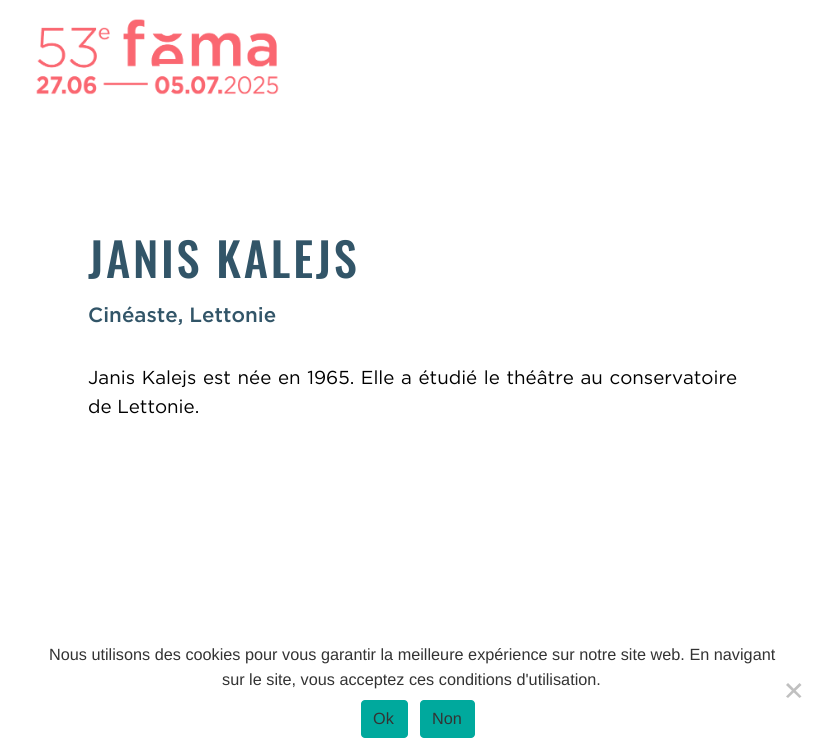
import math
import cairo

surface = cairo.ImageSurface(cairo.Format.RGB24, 823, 756)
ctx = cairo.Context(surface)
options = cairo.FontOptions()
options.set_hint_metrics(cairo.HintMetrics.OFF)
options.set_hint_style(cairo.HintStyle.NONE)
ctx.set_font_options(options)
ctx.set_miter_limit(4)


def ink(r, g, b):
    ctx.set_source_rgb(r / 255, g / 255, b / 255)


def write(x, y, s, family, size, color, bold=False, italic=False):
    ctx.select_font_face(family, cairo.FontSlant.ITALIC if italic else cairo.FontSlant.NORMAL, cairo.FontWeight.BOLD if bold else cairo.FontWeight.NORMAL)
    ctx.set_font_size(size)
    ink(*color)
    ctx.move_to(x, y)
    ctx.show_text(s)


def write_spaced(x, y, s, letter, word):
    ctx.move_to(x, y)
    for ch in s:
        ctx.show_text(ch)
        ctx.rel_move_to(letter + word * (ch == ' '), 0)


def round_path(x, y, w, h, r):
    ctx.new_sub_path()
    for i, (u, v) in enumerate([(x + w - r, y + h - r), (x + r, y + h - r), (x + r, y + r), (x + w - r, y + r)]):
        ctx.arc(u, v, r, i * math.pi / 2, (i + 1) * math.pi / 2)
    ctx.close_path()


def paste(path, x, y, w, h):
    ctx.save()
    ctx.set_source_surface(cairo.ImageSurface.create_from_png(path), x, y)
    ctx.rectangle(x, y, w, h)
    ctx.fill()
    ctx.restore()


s1 = dict(family="Gotham Medium", size=20.6, color=(50, 85, 104))
s2 = dict(family="Gotham", size=18.75, color=(0, 0, 0))
s3 = dict(family="Liberation Sans", size=16.25, color=(51, 51, 51))

ink(255, 255, 255)
ctx.paint()
paste("pic1.png", 36, 19, 243, 76)
ctx.select_font_face("Oswald Medium")
ctx.set_font_size(46.5)
ink(50, 85, 104)
write_spaced(88, 278, "JANIS KALEJS", 2.75, 0)
write(88, 322, "Cinéaste, Lettonie", **s1)
ctx.select_font_face("Gotham")
ctx.set_font_size(18.75)
ink(0, 0, 0)
write_spaced(88, 384, "Janis Kalejs est née en 1965. Elle a étudié le théâtre au conservatoire", 0, 1)
write(88, 413, "de Lettonie.", **s2)
write(49, 660, "Nous utilisons des cookies pour vous garantir la meilleure expérience sur notre site web. En navigant", **s3)
write(222, 685, "sur le site, vous acceptez ces conditions d'utilisation.", **s3)
ink(192, 192, 192)
ctx.new_path()
ctx.move_to(799.5, 683)
ctx.line_to(801.5, 685)
ctx.line_to(788, 698)
ctx.line_to(786, 696.5)
ctx.close_path()
ctx.fill()
ctx.new_path()
ctx.move_to(786, 685)
ctx.line_to(788, 683)
ctx.line_to(801.5, 696.5)
ctx.line_to(799.5, 698)
ctx.close_path()
ctx.fill()
ink(0, 169, 157)
round_path(361, 700, 47, 38, 4)
ctx.fill()
write(373, 724, "Ok", **s3)
ink(0, 169, 157)
round_path(420, 700, 55, 38, 4)
ctx.fill()
write(432, 724, "Non", **s3)
surface.write_to_png("screenshot.png")
